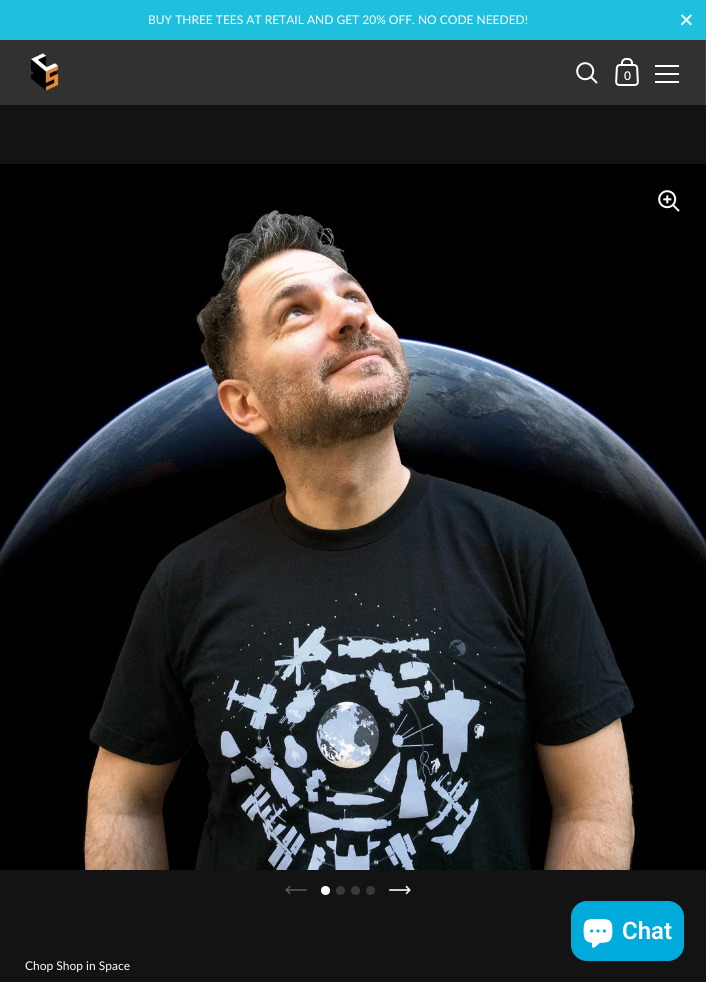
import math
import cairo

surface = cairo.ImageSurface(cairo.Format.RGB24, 706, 982)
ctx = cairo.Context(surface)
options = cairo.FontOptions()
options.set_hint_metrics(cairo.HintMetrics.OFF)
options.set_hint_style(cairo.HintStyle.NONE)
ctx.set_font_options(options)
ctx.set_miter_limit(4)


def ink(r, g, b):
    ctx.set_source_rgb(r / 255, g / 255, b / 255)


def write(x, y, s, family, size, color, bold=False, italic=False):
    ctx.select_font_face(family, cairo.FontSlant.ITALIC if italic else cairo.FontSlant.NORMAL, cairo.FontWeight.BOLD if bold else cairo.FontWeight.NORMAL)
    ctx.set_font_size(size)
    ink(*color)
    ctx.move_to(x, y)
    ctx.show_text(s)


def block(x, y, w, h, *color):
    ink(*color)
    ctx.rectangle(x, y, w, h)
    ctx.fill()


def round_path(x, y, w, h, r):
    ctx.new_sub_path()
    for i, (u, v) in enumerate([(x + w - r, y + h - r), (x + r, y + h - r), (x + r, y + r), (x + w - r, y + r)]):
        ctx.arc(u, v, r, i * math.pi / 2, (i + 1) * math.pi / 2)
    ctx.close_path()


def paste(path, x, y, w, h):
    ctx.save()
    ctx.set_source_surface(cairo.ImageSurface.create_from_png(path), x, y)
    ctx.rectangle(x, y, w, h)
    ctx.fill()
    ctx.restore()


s1 = dict(family="Lato", size=12, color=(255, 255, 255))
s2 = dict(family="Lato SemiBold", size=12, color=(255, 255, 255))
s3 = dict(family="Roboto SemiBold", size=24, color=(255, 255, 255))

ink(19, 19, 19)
ctx.paint()
block(0, 0, 706, 40, 30, 192, 221)
write(148, 24, "BUY THREE TEES AT RETAIL AND GET 20% OFF. NO CODE NEEDED!", **s1)
paste("pic1.png", 680, 14, 12, 12)
block(0, 40, 705, 65, 49, 49, 49)
block(705, 40, 1, 65, 65, 65, 65)
paste("pic2.png", 31, 53, 28, 38)
paste("pic3.png", 576, 62, 22, 22)
paste("pic4.png", 615, 58, 24, 28)
write(624, 80, "0", **s2)
block(655, 65, 24, 2, 255, 255, 255)
block(655, 73, 24, 2, 255, 255, 255)
block(655, 81, 24, 2, 255, 255, 255)
ink(0, 171, 220)
round_path(571, 901, 113, 60, 16)
ctx.fill()
paste("pic5.png", 583, 919, 30, 29)
write(622, 939, "Chat", **s3)
paste("pic6.png", 0, 164, 706, 706)
paste("pic7.png", 658, 190, 22, 22)
paste("pic8.png", 285, 885, 22, 10)
ctx.arc(325.5, 890.5, 4.5, 0, 2 * math.pi)
ctx.fill()
ink(57, 57, 57)
ctx.arc(340.5, 890.5, 4.5, 0, 2 * math.pi)
ctx.fill()
ctx.arc(355.5, 890.5, 4.5, 0, 2 * math.pi)
ctx.fill()
ctx.arc(370.5, 890.5, 4.5, 0, 2 * math.pi)
ctx.fill()
paste("pic9.png", 389, 885, 22, 10)
write(25, 970, "Chop Shop in Space", **s1)
surface.write_to_png("screenshot.png")
